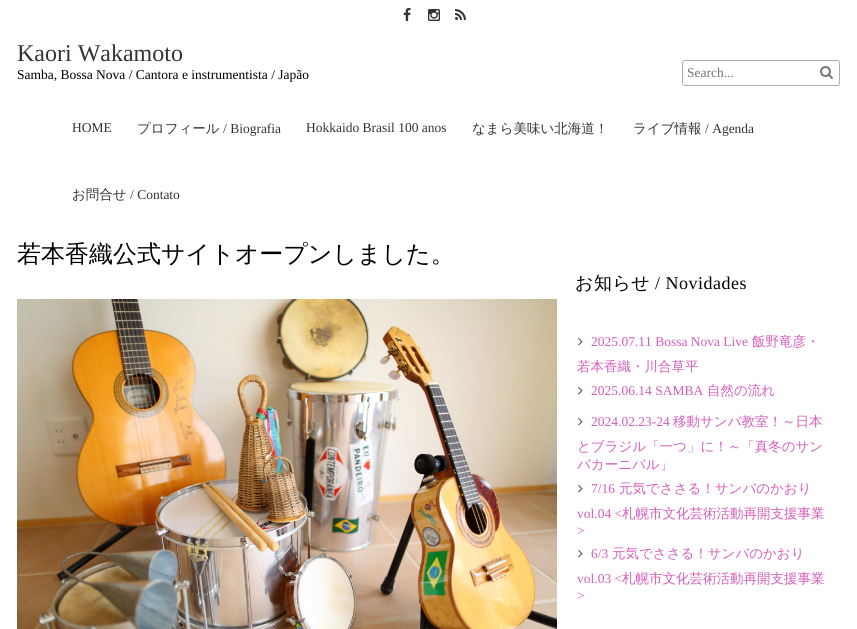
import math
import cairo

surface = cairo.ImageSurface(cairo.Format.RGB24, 857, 629)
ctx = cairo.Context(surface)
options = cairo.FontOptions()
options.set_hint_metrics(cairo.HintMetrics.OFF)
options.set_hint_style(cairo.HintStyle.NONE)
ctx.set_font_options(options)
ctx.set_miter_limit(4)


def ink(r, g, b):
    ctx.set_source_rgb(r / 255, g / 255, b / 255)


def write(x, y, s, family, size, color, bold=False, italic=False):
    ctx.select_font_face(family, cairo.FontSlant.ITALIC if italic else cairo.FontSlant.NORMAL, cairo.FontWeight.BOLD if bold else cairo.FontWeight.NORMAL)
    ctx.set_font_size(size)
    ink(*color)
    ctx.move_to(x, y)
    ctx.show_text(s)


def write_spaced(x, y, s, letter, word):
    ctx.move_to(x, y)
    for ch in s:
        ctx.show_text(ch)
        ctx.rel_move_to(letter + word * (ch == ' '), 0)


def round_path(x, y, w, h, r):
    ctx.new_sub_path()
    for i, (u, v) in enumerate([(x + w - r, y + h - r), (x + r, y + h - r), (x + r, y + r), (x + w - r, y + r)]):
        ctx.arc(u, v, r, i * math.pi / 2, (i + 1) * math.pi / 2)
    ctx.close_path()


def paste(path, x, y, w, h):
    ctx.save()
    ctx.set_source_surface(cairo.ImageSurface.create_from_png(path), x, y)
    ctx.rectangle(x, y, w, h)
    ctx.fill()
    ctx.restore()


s1 = dict(family="Liberation Serif", size=24, color=(51, 51, 51))
s2 = dict(family="Liberation Serif", size=13.5, color=(0, 0, 0))
s3 = dict(family="Liberation Serif", size=13.5, color=(117, 117, 117))
s4 = dict(family="Liberation Serif", size=13.5, color=(51, 51, 51))
s5 = dict(family="WenQuanYi Zen Hei Medium", size=13.5, color=(51, 51, 51))
s6 = dict(family="WenQuanYi Zen Hei Medium", size=24, color=(0, 0, 0))
s7 = dict(family="Liberation Serif", size=13.5, color=(212, 93, 188))
s8 = dict(family="WenQuanYi Zen Hei Medium", size=13.5, color=(212, 93, 188))

ink(255, 255, 255)
ctx.paint()
paste("pic1.png", 403, 8, 8, 13)
paste("pic2.png", 428, 9, 12, 12)
paste("pic3.png", 455, 9, 11, 11)
write(17, 61, "Kaori Wakamoto", **s1)
write(17, 79, "Samba, Bossa Nova / Cantora e instrumentista / Japão", **s2)
round_path(682.5, 60.5, 157, 25, 2.5)
ink(178, 174, 163)
ctx.set_line_width(1)
ctx.stroke()
ink(255, 255, 255)
round_path(683, 61, 128, 24, 3)
ctx.fill()
write(687, 77, "Search...", **s3)
ink(255, 255, 255)
round_path(814, 61, 25, 24, 3)
ctx.fill()
paste("pic4.png", 820, 66, 13, 13)
write(72, 132, "HOME", **s4)
write(137, 133, "プロフィール", **s5)
write(223, 133, "/ Biografia", **s4)
write(306, 132, "Hokkaido Brasil 100 anos", **s4)
write(472, 133, "なまら美味い北海道！", **s5)
write(633, 133, "ライブ情報", **s5)
write(705, 133, "/ Agenda", **s4)
write(72, 199, "お問合せ", **s5)
write(130, 199, "/ Contato", **s4)
write(17, 262, "若本香織公式サイトオープンしました。", **s6)
paste("pic5.png", 17, 299, 540, 330)
ctx.set_font_size(18)
write_spaced(575, 289, "お知らせ", 0.5, 0)
ctx.select_font_face("Liberation Serif")
write_spaced(655, 289, "/ Novidades", 0.5, 0)
paste("pic6.png", 578, 338, 5, 8)
write(591, 346, "2025.07.11 Bossa Nova Live", **s7)
write(752, 346, "飯野竜彦・", **s8)
write(577, 371, "若本香織・川合草平", **s8)
paste("pic6.png", 578, 387, 5, 8)
write(591, 395, "2025.06.14 SAMBA", **s7)
write(707, 395, "自然の流れ", **s8)
paste("pic6.png", 578, 418, 5, 8)
write(591, 426, "2024.02.23-24", **s7)
write(673, 426, "移動サンバ教室！～日本", **s8)
write(577, 451, "とブラジル「一つ」に！～「真冬のサン", **s8)
write(577, 469, "バカーニバル」", **s8)
paste("pic6.png", 578, 485, 5, 8)
write(591, 493, "7/16", **s7)
write(619, 493, "元気でささる！サンバのかおり", **s8)
write(577, 518, "vol.04 <", **s7)
write(622, 518, "札幌市文化芸術活動再開支援事業", **s8)
write(577, 535, ">", **s7)
paste("pic6.png", 578, 550, 5, 8)
write(591, 558, "6/3", **s7)
write(612, 558, "元気でささる！サンバのかおり", **s8)
write(577, 583, "vol.03 <", **s7)
write(622, 583, "札幌市文化芸術活動再開支援事業", **s8)
write(577, 600, ">", **s7)
surface.write_to_png("screenshot.png")
